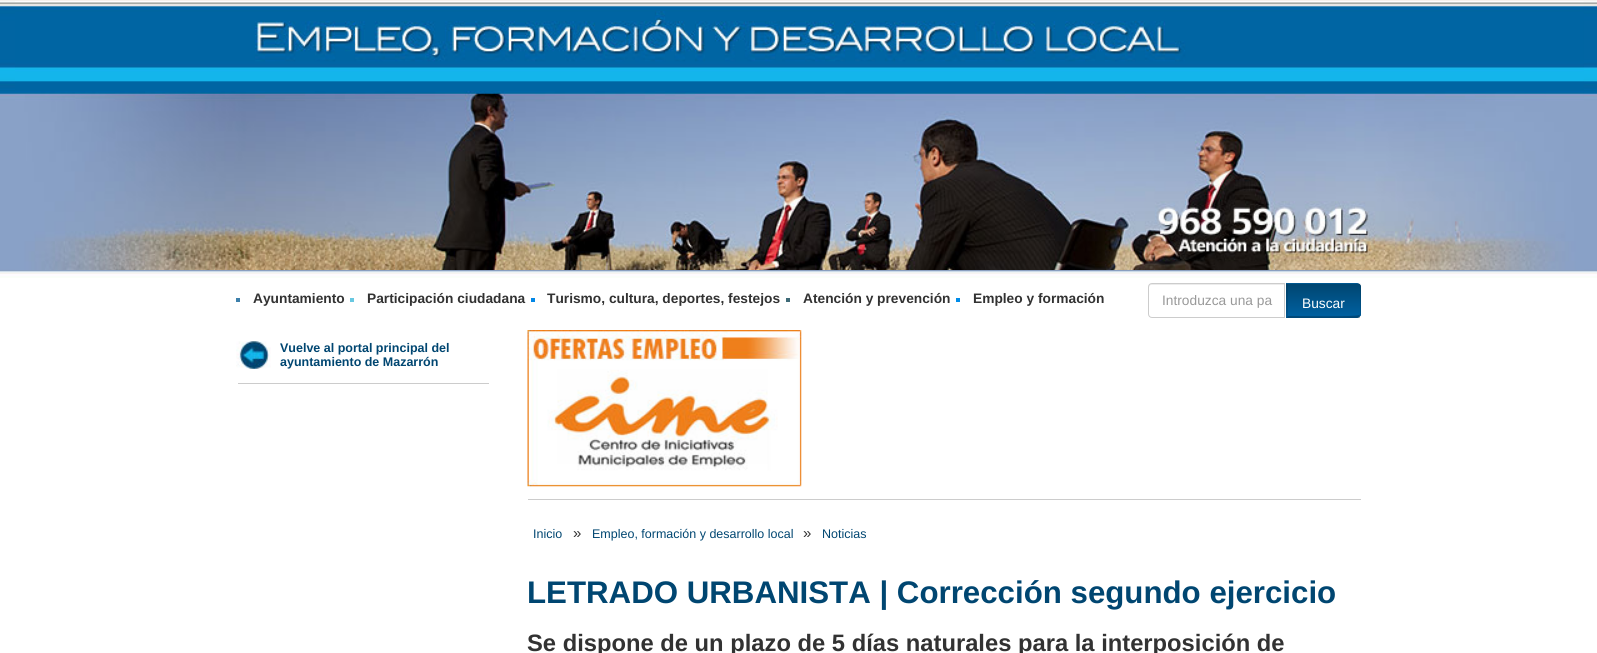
import math
import cairo

surface = cairo.ImageSurface(cairo.Format.RGB24, 1597, 653)
ctx = cairo.Context(surface)
options = cairo.FontOptions()
options.set_hint_metrics(cairo.HintMetrics.OFF)
options.set_hint_style(cairo.HintStyle.NONE)
ctx.set_font_options(options)
ctx.set_miter_limit(4)


def ink(r, g, b):
    ctx.set_source_rgb(r / 255, g / 255, b / 255)


def write(x, y, s, family, size, color, bold=False, italic=False):
    ctx.select_font_face(family, cairo.FontSlant.ITALIC if italic else cairo.FontSlant.NORMAL, cairo.FontWeight.BOLD if bold else cairo.FontWeight.NORMAL)
    ctx.set_font_size(size)
    ink(*color)
    ctx.move_to(x, y)
    ctx.show_text(s)


def block(x, y, w, h, *color):
    ink(*color)
    ctx.rectangle(x, y, w, h)
    ctx.fill()


def paste(path, x, y, w, h):
    ctx.save()
    ctx.set_source_surface(cairo.ImageSurface.create_from_png(path), x, y)
    ctx.rectangle(x, y, w, h)
    ctx.fill()
    ctx.restore()


s1 = dict(family="Liberation Sans", size=13.75, color=(50, 50, 50), bold=True)
s2 = dict(family="Liberation Sans", size=13.75, color=(153, 153, 153))
s3 = dict(family="Liberation Sans", size=13.75, color=(255, 255, 255))
s4 = dict(family="Liberation Sans", size=12.5, color=(0, 70, 113), bold=True)
s5 = dict(family="Liberation Sans", size=12.5, color=(0, 70, 113))
s6 = dict(family="Liberation Sans", size=15, color=(50, 50, 50))
s7 = dict(family="Liberation Sans", size=31.25, color=(0, 70, 113), bold=True)
s8 = dict(family="Liberation Sans", size=23.75, color=(50, 50, 50), bold=True)

ink(255, 255, 255)
ctx.paint()
paste("pic1.png", 0, 0, 1597, 278)
paste("pic2.png", 15, 1, 1569, 269)
block(236, 298, 4, 4, 61, 128, 171)
write(253, 303, "Ayuntamiento", **s1)
block(350, 298, 4, 4, 104, 200, 225)
write(367, 303, "Participación ciudadana", **s1)
block(531, 298, 4, 4, 2, 135, 230)
write(547, 303, "Turismo, cultura, deportes, festejos", **s1)
block(786, 298, 4, 4, 62, 106, 119)
write(803, 303, "Atención y prevención", **s1)
block(956, 298, 4, 4, 0, 140, 233)
write(973, 303, "Empleo y formación", **s1)
ink(236, 236, 236)
ctx.new_path()
ctx.move_to(1151, 285)
ctx.line_to(1284, 285)
ctx.line_to(1284, 284)
ctx.line_to(1152, 284)
ctx.curve_to(1150, 284, 1149, 285, 1149, 286)
ctx.line_to(1149, 288)
ctx.curve_to(1149, 286, 1150, 285, 1151, 285)
ctx.close_path()
ctx.fill()
ctx.new_path()
ctx.move_to(1152, 283.5)
ctx.line_to(1284.5, 283.5)
ctx.line_to(1284.5, 317.5)
ctx.line_to(1152, 317.5)
ctx.curve_to(1150, 317.5, 1148.5, 316, 1148.5, 314)
ctx.line_to(1148.5, 287)
ctx.curve_to(1148.5, 285, 1150, 283.5, 1152, 283.5)
ctx.close_path()
ink(204, 204, 204)
ctx.set_line_width(1)
ctx.stroke()
write(1162, 305, "Introduzca una pa", **s2)
ink(0, 96, 160)
ctx.new_path()
ctx.move_to(1286, 283)
ctx.line_to(1357, 283)
ctx.curve_to(1359, 283, 1361, 285, 1361, 287)
ctx.line_to(1361, 314)
ctx.curve_to(1361, 316, 1359, 318, 1357, 318)
ctx.line_to(1286, 318)
ctx.close_path()
ctx.fill()
ctx.save()
ctx.new_path()
ctx.move_to(1286, 283)
ctx.line_to(1357, 283)
ctx.curve_to(1359, 283, 1361, 285, 1361, 287)
ctx.line_to(1361, 314)
ctx.curve_to(1361, 316, 1359, 318, 1357, 318)
ctx.line_to(1286, 318)
ctx.close_path()
ctx.clip()
gradient = cairo.LinearGradient(1324, 284, 1324, 316)
gradient.add_color_stop_rgba(0, 0, 0.275, 0.443, 1)
gradient.add_color_stop_rgba(1, 0, 0.376, 0.627, 1)
ctx.set_source(gradient)
ctx.rectangle(1286, 284, 75, 32)
ctx.fill()
ctx.restore()
ctx.save()
ctx.rectangle(1148, 283, 213, 35)
ctx.clip()
ctx.set_source_rgba(0, 0, 0, 0.1)
ctx.new_path()
ctx.move_to(1288, 284)
ctx.line_to(1286, 282)
ctx.line_to(1360, 282)
ctx.line_to(1360, 283)
ctx.line_to(1359, 285)
ctx.line_to(1358, 284)
ctx.close_path()
ctx.fill()
ctx.restore()
ctx.set_source_rgba(0, 0, 0, 0.1)
ctx.new_path()
ctx.move_to(1360.5, 283.5)
ctx.curve_to(1361, 284, 1361, 285, 1361, 286)
ctx.line_to(1361, 314)
ctx.curve_to(1361, 315, 1361, 316, 1360.5, 316.5)
ctx.line_to(1359, 315.5)
ctx.line_to(1360, 314)
ctx.line_to(1360, 286)
ctx.line_to(1359, 284.5)
ctx.close_path()
ctx.fill()
ctx.set_source_rgba(0, 0, 0, 0.25)
ctx.new_path()
ctx.move_to(1360, 317)
ctx.line_to(1360, 318)
ctx.line_to(1286, 318)
ctx.line_to(1288, 316)
ctx.curve_to(1295, 316, 1358, 317, 1359, 315)
ctx.close_path()
ctx.fill()
ctx.set_source_rgba(0, 0, 0, 0.1)
ctx.new_path()
ctx.move_to(1286, 317.5)
ctx.line_to(1288, 316)
ctx.line_to(1288, 284)
ctx.line_to(1286, 282.5)
ctx.close_path()
ctx.fill()
write(1302, 308, "Buscar", **s3)
paste("pic3.png", 236, 341, 35, 28)
write(280, 352, "Vuelve al portal principal del", **s4)
write(280, 366, "ayuntamiento de Mazarrón", **s4)
block(238, 383, 251, 1, 204, 204, 204)
block(528, 499, 833, 1, 204, 204, 204)
paste("pic4.png", 527, 330, 275, 157)
write(533, 538, "Inicio", **s5)
write(573, 538, "»", **s6)
write(592, 538, "Empleo, formación y desarrollo local", **s5)
write(803, 538, "»", **s6)
write(822, 538, "Noticias", **s5)
write(527, 603, "LETRADO URBANISTA | Corrección segundo ejercicio", **s7)
write(527, 651, "Se dispone de un plazo de 5 días naturales para la interposición de", **s8)
surface.write_to_png("screenshot.png")
